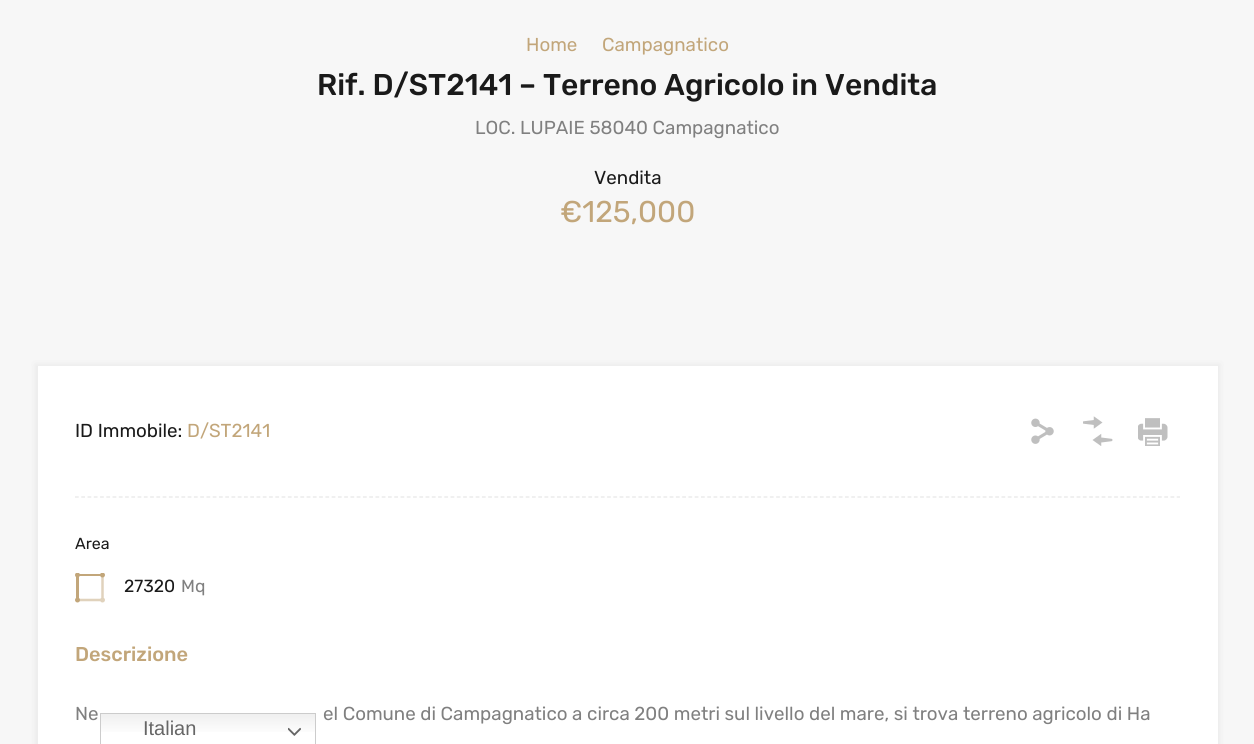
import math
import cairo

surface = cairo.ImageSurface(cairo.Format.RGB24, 1254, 744)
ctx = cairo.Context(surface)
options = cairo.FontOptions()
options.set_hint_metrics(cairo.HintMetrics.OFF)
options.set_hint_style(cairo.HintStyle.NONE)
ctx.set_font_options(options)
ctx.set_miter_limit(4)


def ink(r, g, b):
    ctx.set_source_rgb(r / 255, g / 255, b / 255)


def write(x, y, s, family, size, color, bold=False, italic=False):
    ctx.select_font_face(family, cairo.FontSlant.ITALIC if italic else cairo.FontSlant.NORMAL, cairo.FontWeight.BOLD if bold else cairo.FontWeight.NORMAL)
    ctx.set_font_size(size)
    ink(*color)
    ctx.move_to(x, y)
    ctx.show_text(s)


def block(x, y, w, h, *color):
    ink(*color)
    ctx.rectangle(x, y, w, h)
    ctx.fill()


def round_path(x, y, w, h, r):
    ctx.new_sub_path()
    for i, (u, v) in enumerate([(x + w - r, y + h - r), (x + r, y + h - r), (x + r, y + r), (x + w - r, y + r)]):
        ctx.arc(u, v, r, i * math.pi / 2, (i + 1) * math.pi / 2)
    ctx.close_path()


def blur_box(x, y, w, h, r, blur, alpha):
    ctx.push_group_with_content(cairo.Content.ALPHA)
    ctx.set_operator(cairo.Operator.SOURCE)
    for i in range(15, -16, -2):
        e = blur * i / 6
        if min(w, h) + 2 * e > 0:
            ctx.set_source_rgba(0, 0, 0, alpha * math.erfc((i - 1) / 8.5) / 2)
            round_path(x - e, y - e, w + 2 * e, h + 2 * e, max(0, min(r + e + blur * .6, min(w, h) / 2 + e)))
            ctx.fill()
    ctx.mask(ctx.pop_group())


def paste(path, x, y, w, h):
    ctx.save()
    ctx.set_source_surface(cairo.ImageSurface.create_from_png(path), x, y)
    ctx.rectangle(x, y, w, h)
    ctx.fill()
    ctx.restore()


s1 = dict(family="Rubik", size=18.75, color=(194, 166, 122))
s2 = dict(family="Rubik Medium", size=30, color=(26, 26, 26))
s3 = dict(family="Rubik", size=18.75, color=(128, 128, 128))
s4 = dict(family="Rubik", size=18.75, color=(26, 26, 26))
s5 = dict(family="Rubik", size=30, color=(194, 166, 122))
s6 = dict(family="Rubik", size=16, color=(26, 26, 26))
s7 = dict(family="Rubik", size=17.5, color=(26, 26, 26))
s8 = dict(family="Rubik", size=17.5, color=(128, 128, 128))
s9 = dict(family="Rubik Medium", size=20, color=(194, 166, 122))
s10 = dict(family="Liberation Sans", size=20, color=(102, 102, 102))

ink(247, 247, 247)
ctx.paint()
write(526, 51, "Home", **s1)
write(602, 51, "Campagnatico", **s1)
write(317, 95, "Rif. D/ST2141 – Terreno Agricolo in Vendita", **s2)
write(475, 134, "LOC. LUPAIE 58040 Campagnatico", **s3)
write(594, 184, "Vendita", **s4)
write(560, 222, "€125,000", **s5)
ink(0, 0, 0)
blur_box(35, 364, 1185, 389, 0, 3, 0.05)
block(38, 366, 1180, 378, 255, 255, 255)
ctx.new_path()
ctx.move_to(75, 497)
ctx.line_to(1180, 497)
ink(230, 230, 230)
ctx.set_line_width(1.2)
ctx.set_dash([3.75, 2.51])
ctx.stroke()
write(75, 437, "ID Immobile:", **s4)
write(187, 437, "D/ST2141", **s1)
paste("pic1.png", 1031, 418, 23, 26)
paste("pic2.png", 1083, 416, 30, 30)
paste("pic3.png", 1138, 418, 30, 28)
write(75, 549, "Area", **s6)
paste("pic4.png", 75, 573, 30, 30)
write(124, 592, "27320", **s7)
write(181, 592, "Mq", **s8)
write(75, 661, "Descrizione", **s9)
write(75, 720, "Ne", **s3)
write(323, 720, "el Comune di Campagnatico a circa 200 metri sul livello del mare, si trova terreno agricolo di Ha", **s3)
gradient = cairo.LinearGradient(208, 713, 208, 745)
gradient.add_color_stop_rgba(0, 0.937, 0.937, 0.937, 1)
gradient.add_color_stop_rgba(0.7, 1, 1, 1, 1)
ctx.set_source(gradient)
ctx.rectangle(101, 714, 214, 18)
ctx.fill()
ctx.rectangle(100.5, 713.5, 215, 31)
ink(204, 204, 204)
ctx.set_line_width(1)
ctx.set_dash([])
ctx.stroke()
write(143, 735, "Italian", **s10)
paste("pic5.png", 288, 727, 13, 9)
surface.write_to_png("screenshot.png")
